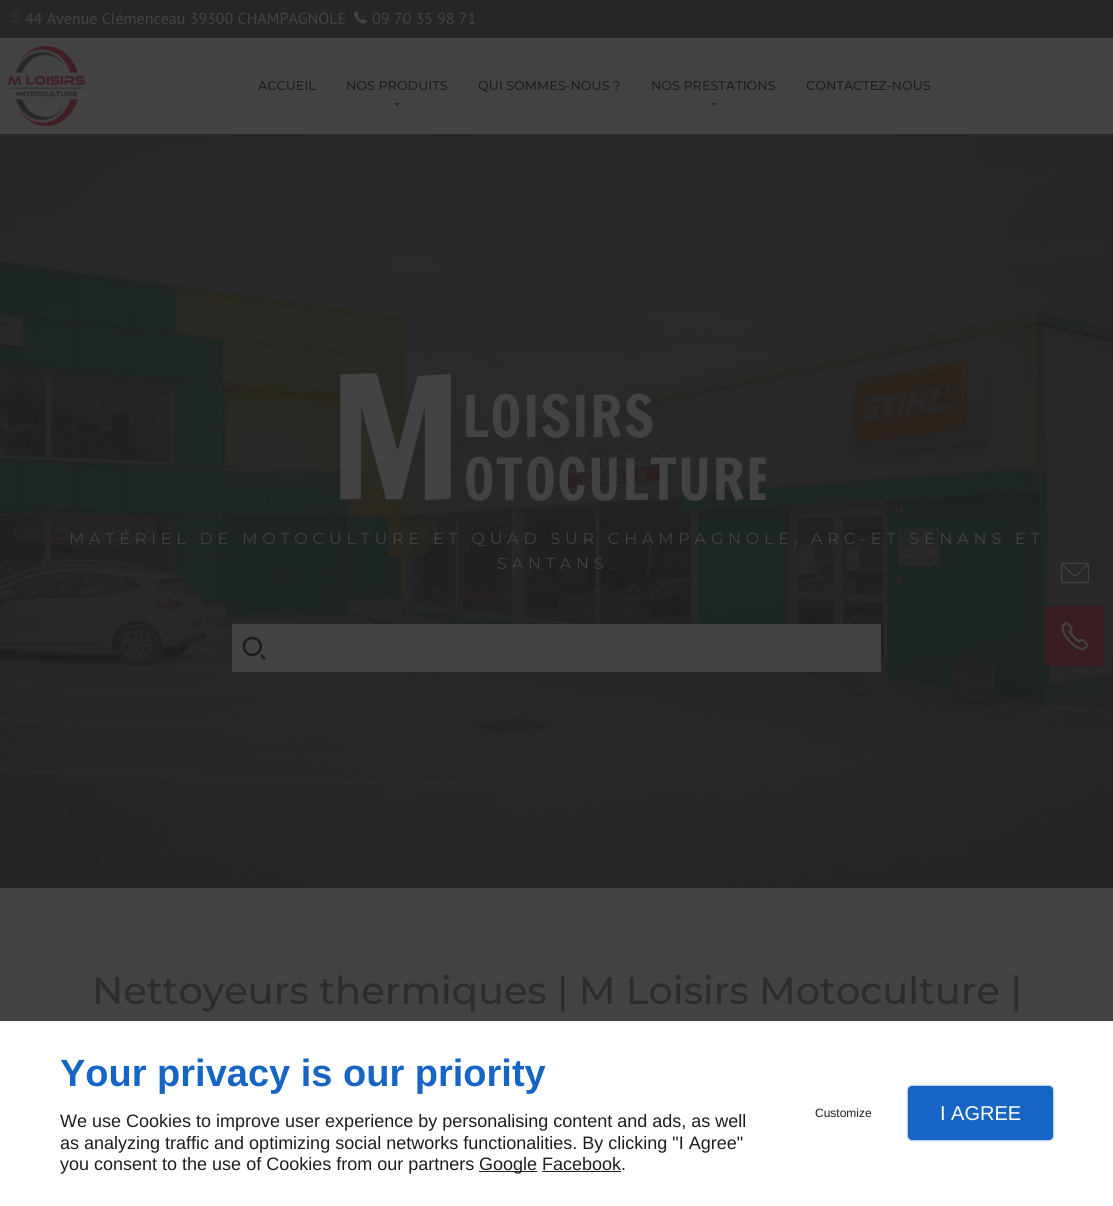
import math
import cairo

surface = cairo.ImageSurface(cairo.Format.RGB24, 1113, 1206)
ctx = cairo.Context(surface)
options = cairo.FontOptions()
options.set_hint_metrics(cairo.HintMetrics.OFF)
options.set_hint_style(cairo.HintStyle.NONE)
ctx.set_font_options(options)
ctx.set_miter_limit(4)


def ink(r, g, b):
    ctx.set_source_rgb(r / 255, g / 255, b / 255)


def write(x, y, s, family, size, color, bold=False, italic=False):
    ctx.select_font_face(family, cairo.FontSlant.ITALIC if italic else cairo.FontSlant.NORMAL, cairo.FontWeight.BOLD if bold else cairo.FontWeight.NORMAL)
    ctx.set_font_size(size)
    ink(*color)
    ctx.move_to(x, y)
    ctx.show_text(s)


def write_spaced(x, y, s, letter, word):
    ctx.move_to(x, y)
    for ch in s:
        ctx.show_text(ch)
        ctx.rel_move_to(letter + word * (ch == ' '), 0)


def block(x, y, w, h, *color):
    ink(*color)
    ctx.rectangle(x, y, w, h)
    ctx.fill()


def round_path(x, y, w, h, r):
    ctx.new_sub_path()
    for i, (u, v) in enumerate([(x + w - r, y + h - r), (x + r, y + h - r), (x + r, y + r), (x + w - r, y + r)]):
        ctx.arc(u, v, r, i * math.pi / 2, (i + 1) * math.pi / 2)
    ctx.close_path()


def blur_box(x, y, w, h, r, blur, alpha):
    ctx.push_group_with_content(cairo.Content.ALPHA)
    ctx.set_operator(cairo.Operator.SOURCE)
    for i in range(15, -16, -2):
        e = blur * i / 6
        if min(w, h) + 2 * e > 0:
            ctx.set_source_rgba(0, 0, 0, alpha * math.erfc((i - 1) / 8.5) / 2)
            round_path(x - e, y - e, w + 2 * e, h + 2 * e, max(0, min(r + e + blur * .6, min(w, h) / 2 + e)))
            ctx.fill()
    ctx.mask(ctx.pop_group())


def paste(path, x, y, w, h):
    ctx.save()
    ctx.set_source_surface(cairo.ImageSurface.create_from_png(path), x, y)
    ctx.rectangle(x, y, w, h)
    ctx.fill()
    ctx.restore()


s1 = dict(family="PT Sans", size=16, color=(67, 67, 67))
s2 = dict(family="Montserrat Medium", size=12.75, color=(29, 29, 29))
s3 = dict(family="Montserrat Medium", size=38.4, color=(44, 44, 44))
s4 = dict(family="Liberation Sans", size=38, color=(22, 101, 196), bold=True)
s5 = dict(family="Liberation Sans", size=18, color=(29, 29, 29))
s6 = dict(family="Liberation Sans", size=12, color=(29, 29, 29))
s7 = dict(family="Liberation Sans", size=20, color=(255, 255, 255))

ink(67, 67, 67)
ctx.paint()
block(0, 0, 1113, 37, 38, 38, 38)
block(0, 37, 1113, 1, 37, 37, 37)
paste("pic1.png", 10, 11, 9, 13)
write(25, 24, "44 Avenue Clémenceau 39300 CHAMPAGNOLE", **s1)
paste("pic2.png", 354, 11, 13, 13)
write(372, 24, "09 70 35 98 71", **s1)
paste("pic3.png", 8, 46, 77, 80)
write(258, 90, "ACCUEIL", **s2)
write(346, 90, "NOS PRODUITS", **s2)
ink(57, 29, 33)
ctx.new_path()
ctx.move_to(394, 103)
ctx.line_to(400, 103)
ctx.line_to(397, 106)
ctx.close_path()
ctx.fill()
write(478, 90, "QUI SOMMES-NOUS ?", **s2)
write(651, 90, "NOS PRESTATIONS", **s2)
ink(57, 29, 33)
ctx.new_path()
ctx.move_to(711, 103)
ctx.line_to(717, 103)
ctx.line_to(714, 106)
ctx.close_path()
ctx.fill()
write(806, 90, "CONTACTEZ-NOUS", **s2)
block(0, 134, 1113, 754, 29, 29, 29)
paste("pic4.png", 0, 134, 1113, 754)
paste("pic5.png", 340, 373, 426, 129)
ctx.select_font_face("Montserrat")
ctx.set_font_size(16)
ink(67, 67, 67)
write_spaced(69, 544, "MATÉRIEL DE MOTOCULTURE ET QUAD SUR CHAMPAGNOLE, ARC-ET SENANS ET", 4.8, 0)
write_spaced(497, 569, "SANTANS.", 4.8, 0)
block(232, 624, 649, 48, 67, 67, 67)
paste("pic6.png", 242, 636, 24, 24)
block(1045, 543, 3, 60, 38, 38, 38)
paste("pic7.png", 1061, 562, 28, 22)
block(1045, 606, 60, 60, 57, 29, 33)
paste("pic8.png", 1061, 622, 28, 28)
write(92, 1004, "Nettoyeurs thermiques | M Loisirs Motoculture |", **s3)
block(0, 1021, 1113, 185, 255, 255, 255)
write(60, 1086, "Your privacy is our priority", **s4)
write(60, 1127, "We use Cookies to improve user experience by personalising content and ads, as well", **s5)
write(60, 1149, "as analyzing traffic and optimizing social networks functionalities. By clicking \"I Agree\"", **s5)
write(60, 1170, "you consent to the use of Cookies from our partners", **s5)
block(479, 1171, 58, 1, 34, 34, 34)
write(479, 1170, "Google Facebook.", **s5)
block(542, 1171, 79, 1, 34, 34, 34)
write(815, 1117, "Customize", **s6)
ink(22, 101, 196)
blur_box(907, 1085, 147, 56, 5, 0.5, 0.3)
ink(22, 101, 196)
round_path(909, 1087, 143, 52, 3)
ctx.fill_preserve()
ctx.stroke()
write(940, 1120, "I AGREE", **s7)
surface.write_to_png("screenshot.png")
